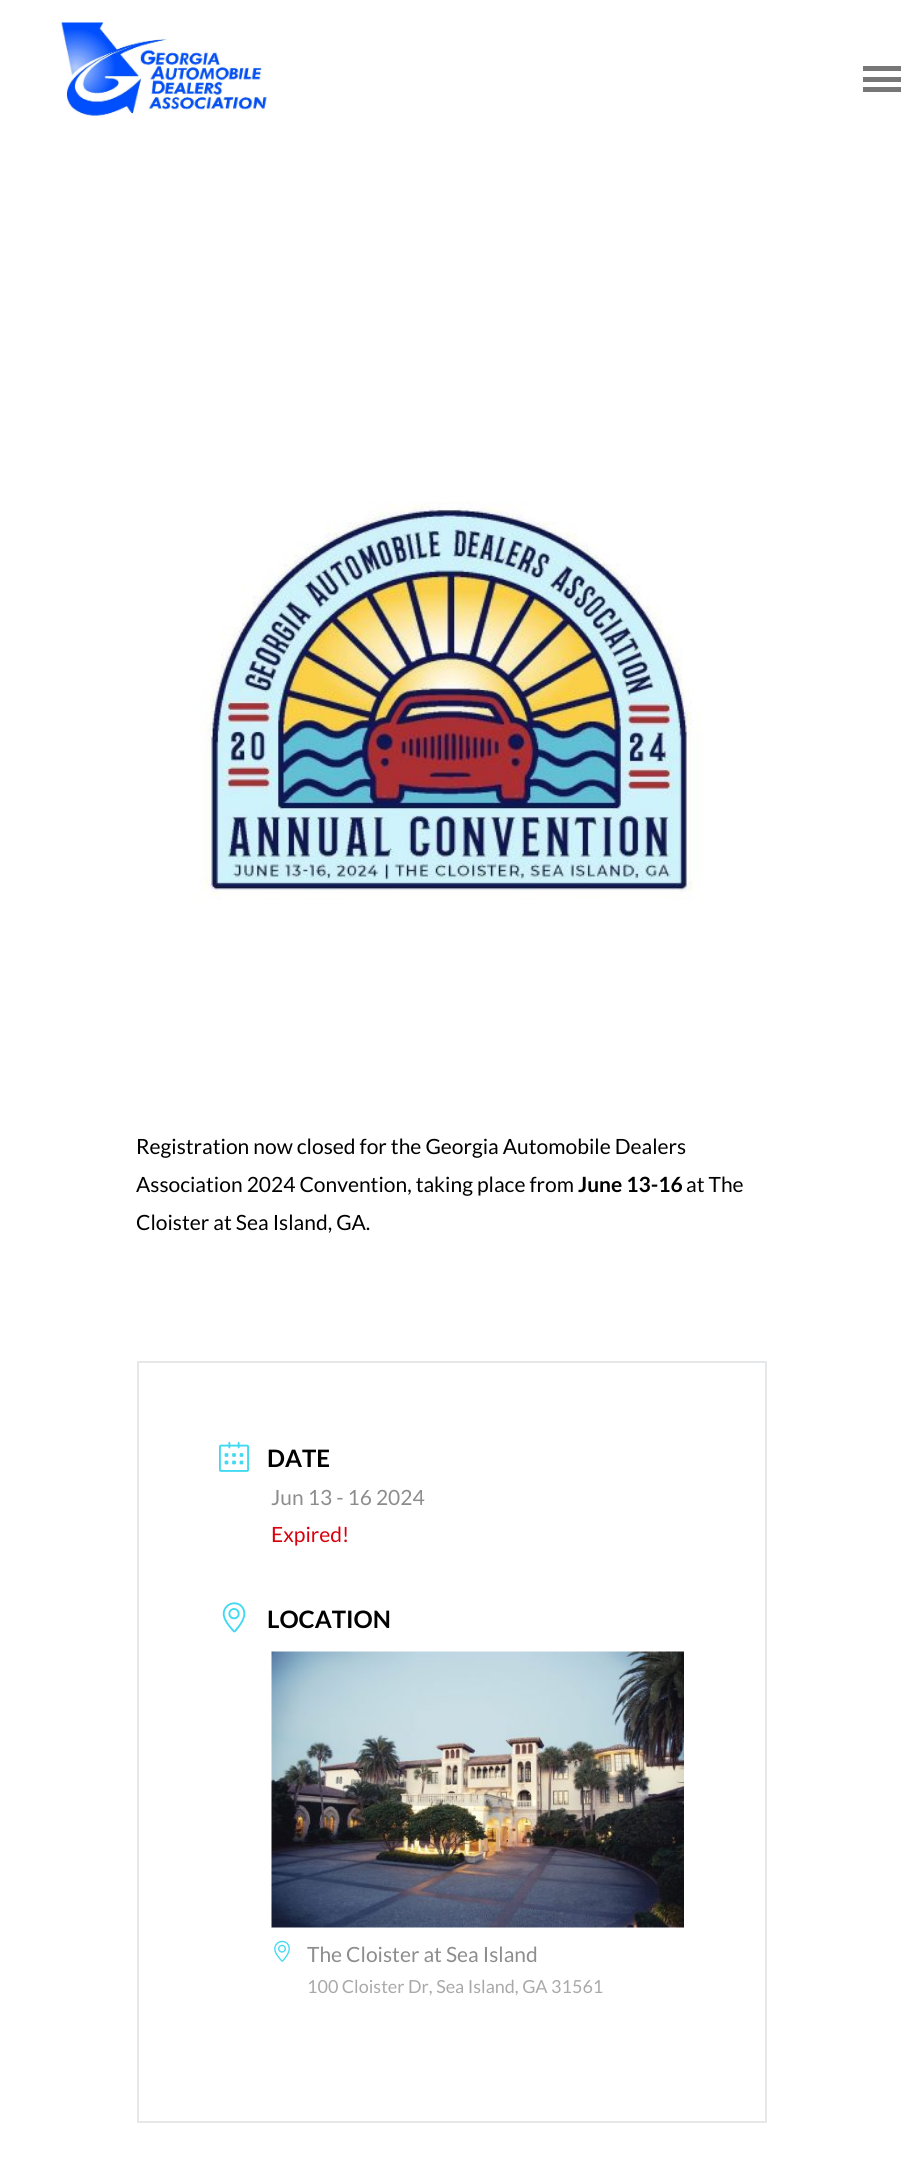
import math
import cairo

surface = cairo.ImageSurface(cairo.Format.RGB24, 901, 2178)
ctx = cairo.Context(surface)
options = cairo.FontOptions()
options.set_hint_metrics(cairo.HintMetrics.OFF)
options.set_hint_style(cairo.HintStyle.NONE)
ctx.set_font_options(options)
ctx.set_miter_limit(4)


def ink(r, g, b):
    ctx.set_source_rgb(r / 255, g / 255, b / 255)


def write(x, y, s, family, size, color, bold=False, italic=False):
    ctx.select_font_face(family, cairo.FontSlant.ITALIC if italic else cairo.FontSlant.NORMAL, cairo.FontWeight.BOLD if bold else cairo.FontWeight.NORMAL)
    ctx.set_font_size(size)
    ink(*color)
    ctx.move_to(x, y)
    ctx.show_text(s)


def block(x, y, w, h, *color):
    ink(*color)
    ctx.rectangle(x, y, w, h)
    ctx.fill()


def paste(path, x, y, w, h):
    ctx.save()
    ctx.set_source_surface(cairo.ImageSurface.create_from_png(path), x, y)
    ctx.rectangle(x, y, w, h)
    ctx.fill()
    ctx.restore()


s1 = dict(family="Lato", size=21, color=(0, 0, 0))
s2 = dict(family="Lato", size=21, color=(0, 0, 0), bold=True)
s3 = dict(family="Lato", size=24, color=(0, 0, 0), bold=True)
s4 = dict(family="Lato", size=21, color=(141, 141, 141))
s5 = dict(family="Lato", size=21, color=(216, 0, 12))
s6 = dict(family="Lato", size=18, color=(169, 169, 169))

ink(255, 255, 255)
ctx.paint()
paste("pic1.png", 59, 22, 208, 96)
block(863, 66, 38, 5, 119, 119, 119)
block(863, 77, 38, 5, 119, 119, 119)
block(863, 87, 38, 5, 119, 119, 119)
paste("pic2.png", 199, 501, 504, 399)
write(136, 1154, "Registration now closed for the Georgia Automobile Dealers", **s1)
write(136, 1192, "Association 2024 Convention, taking place from", **s1)
write(578, 1192, "June 13-16", **s2)
write(686, 1192, "at The", **s1)
write(136, 1230, "Cloister at Sea Island, GA.", **s1)
ctx.rectangle(138, 1362, 628, 760)
ink(230, 231, 232)
ctx.stroke()
paste("pic3.png", 219, 1441, 30, 31)
write(267, 1467, "DATE", **s3)
write(271, 1505, "Jun 13 - 16 2024", **s4)
write(271, 1542, "Expired!", **s5)
paste("pic4.png", 222, 1602, 24, 31)
write(267, 1628, "LOCATION", **s3)
paste("pic5.png", 271, 1651, 413, 277)
paste("pic6.png", 274, 1940, 16, 22)
write(307, 1962, "The Cloister at Sea Island", **s4)
write(307, 1993, "100 Cloister Dr, Sea Island, GA 31561", **s6)
surface.write_to_png("screenshot.png")
